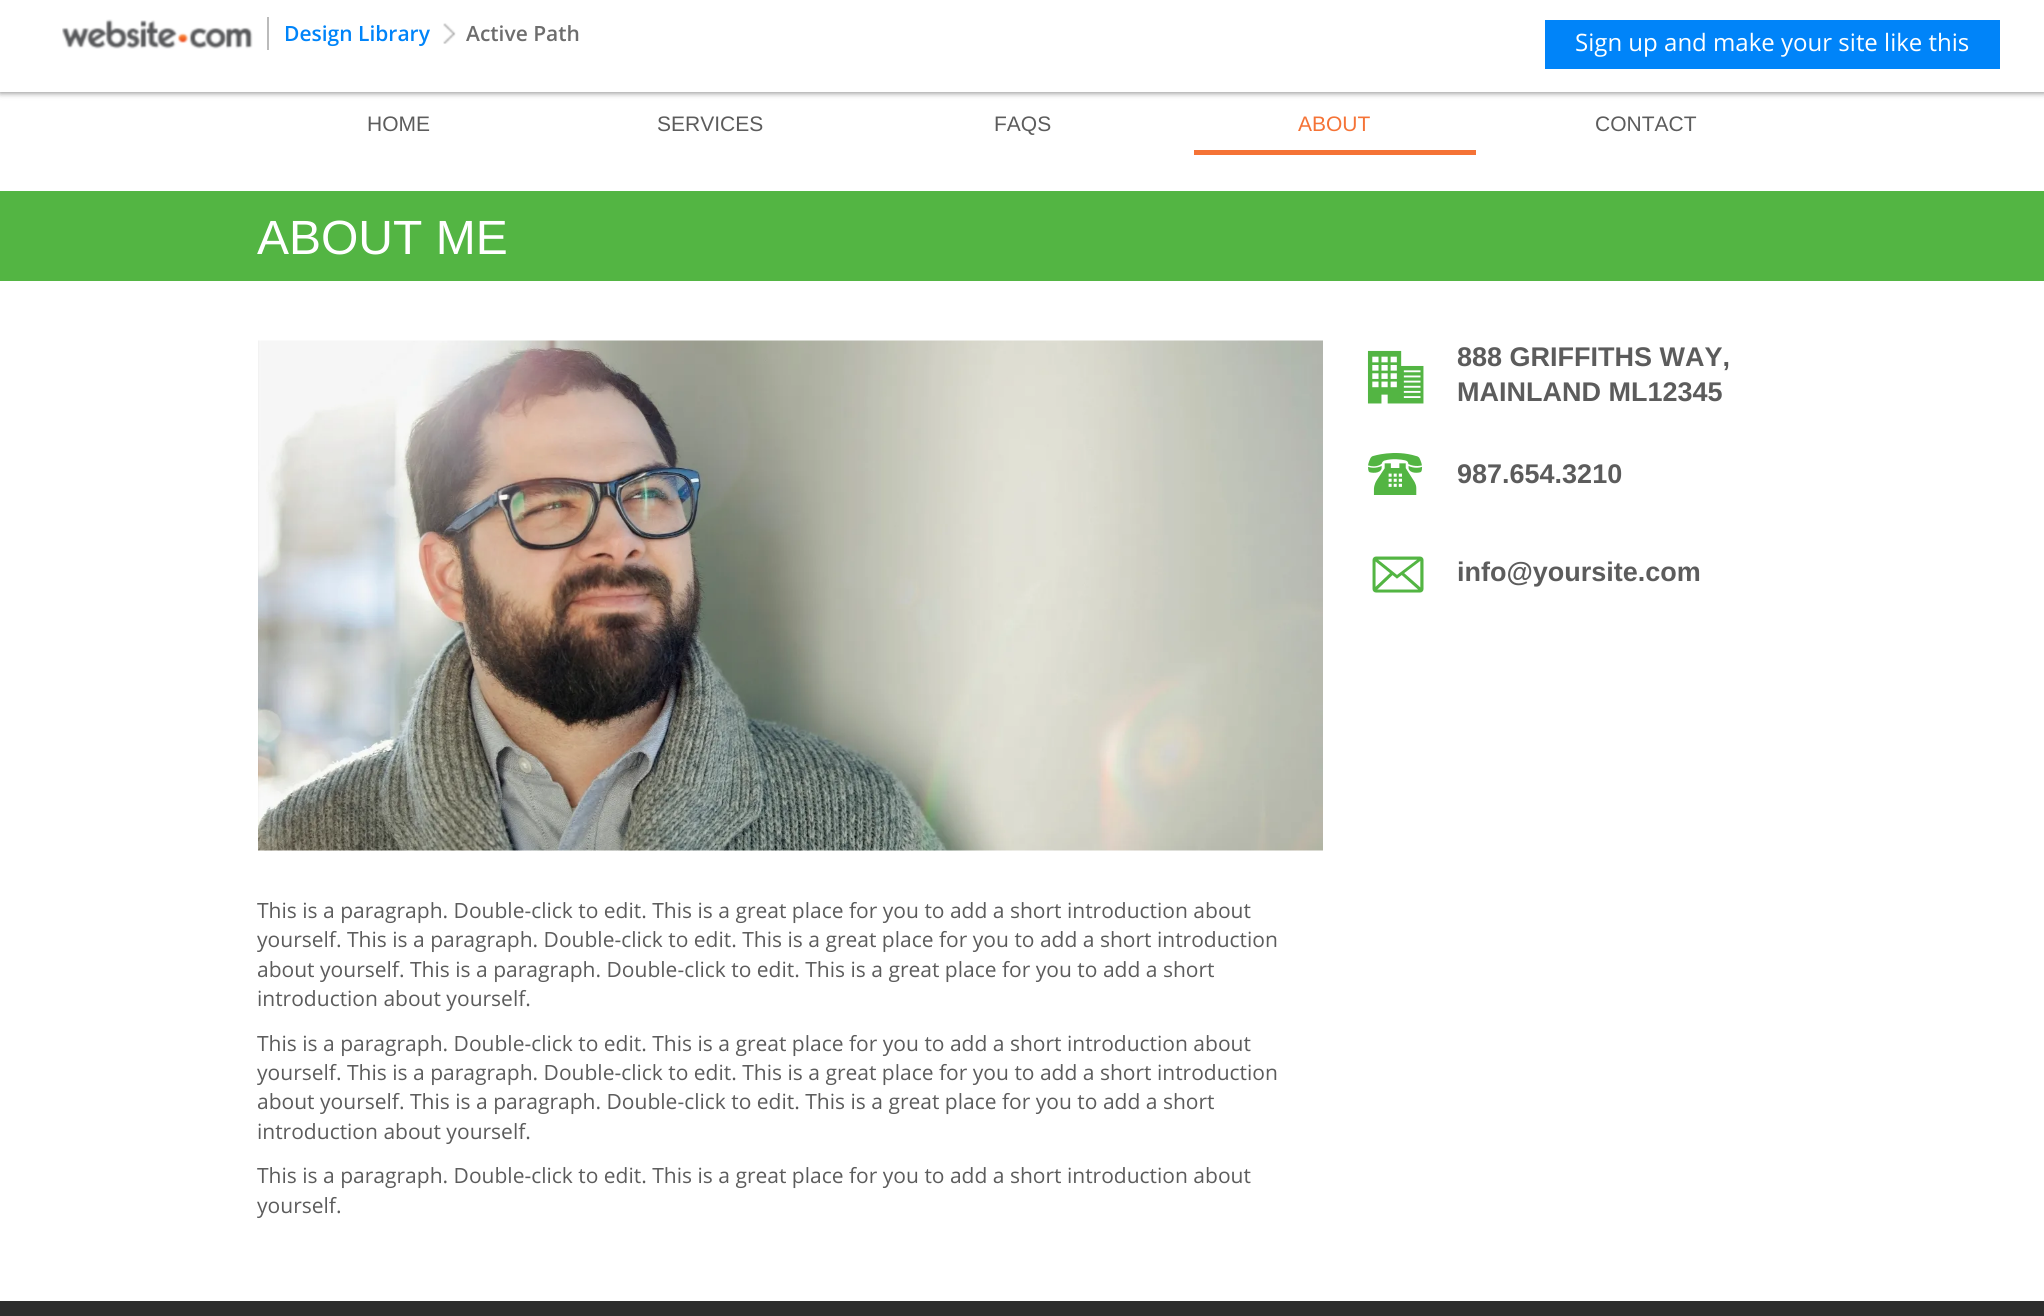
import math
import cairo

surface = cairo.ImageSurface(cairo.Format.RGB24, 2044, 1316)
ctx = cairo.Context(surface)
options = cairo.FontOptions()
options.set_hint_metrics(cairo.HintMetrics.OFF)
options.set_hint_style(cairo.HintStyle.NONE)
ctx.set_font_options(options)
ctx.set_miter_limit(4)


def ink(r, g, b):
    ctx.set_source_rgb(r / 255, g / 255, b / 255)


def write(x, y, s, family, size, color, bold=False, italic=False):
    ctx.select_font_face(family, cairo.FontSlant.ITALIC if italic else cairo.FontSlant.NORMAL, cairo.FontWeight.BOLD if bold else cairo.FontWeight.NORMAL)
    ctx.set_font_size(size)
    ink(*color)
    ctx.move_to(x, y)
    ctx.show_text(s)


def block(x, y, w, h, *color):
    ink(*color)
    ctx.rectangle(x, y, w, h)
    ctx.fill()


def round_path(x, y, w, h, r):
    ctx.new_sub_path()
    for i, (u, v) in enumerate([(x + w - r, y + h - r), (x + r, y + h - r), (x + r, y + r), (x + w - r, y + r)]):
        ctx.arc(u, v, r, i * math.pi / 2, (i + 1) * math.pi / 2)
    ctx.close_path()


def blur_box(x, y, w, h, r, blur, alpha):
    ctx.push_group_with_content(cairo.Content.ALPHA)
    ctx.set_operator(cairo.Operator.SOURCE)
    for i in range(15, -16, -2):
        e = blur * i / 6
        if min(w, h) + 2 * e > 0:
            ctx.set_source_rgba(0, 0, 0, alpha * math.erfc((i - 1) / 8.5) / 2)
            round_path(x - e, y - e, w + 2 * e, h + 2 * e, max(0, min(r + e + blur * .6, min(w, h) / 2 + e)))
            ctx.fill()
    ctx.mask(ctx.pop_group())


def paste(path, x, y, w, h):
    ctx.save()
    ctx.set_source_surface(cairo.ImageSurface.create_from_png(path), x, y)
    ctx.rectangle(x, y, w, h)
    ctx.fill()
    ctx.restore()


s1 = dict(family="Open Sans SemiBold", size=21, color=(0, 132, 249))
s2 = dict(family="Open Sans SemiBold", size=21, color=(109, 109, 109))
s3 = dict(family="Open Sans", size=24, color=(255, 255, 255))
s4 = dict(family="Liberation Sans", size=21, color=(92, 92, 92))
s5 = dict(family="Liberation Sans", size=21, color=(245, 115, 54))
s6 = dict(family="Liberation Sans", size=48, color=(255, 255, 255))
s7 = dict(family="Liberation Sans", size=27, color=(92, 92, 92), bold=True)
s8 = dict(family="Open Sans", size=21, color=(92, 92, 92))

ink(255, 255, 255)
ctx.paint()
ink(0, 0, 0)
blur_box(0, 2, 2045, 91, 0, 3, 0.45)
block(0, 0, 2044, 92, 255, 255, 255)
paste("pic1.png", 62, 19, 191, 30)
block(267, 17, 2, 33, 187, 187, 187)
write(284, 41, "Design Library", **s1)
paste("pic2.png", 443, 23, 13, 21)
write(466, 41, "Active Path", **s2)
block(1545, 20, 455, 49, 0, 132, 249)
write(1575, 51, "Sign up and make your site like this", **s3)
write(367, 131, "HOME", **s4)
write(657, 131, "SERVICES", **s4)
write(994, 131, "FAQS", **s4)
write(1298, 131, "ABOUT", **s5)
block(1194, 150, 282, 5, 245, 115, 54)
write(1595, 131, "CONTACT", **s4)
block(0, 191, 2044, 90, 83, 181, 67)
write(257, 254, "ABOUT ME", **s6)
paste("pic3.png", 258, 340, 1065, 511)
paste("pic4.png", 1367, 350, 57, 54)
write(1457, 366, "888 GRIFFITHS WAY,", **s7)
write(1457, 401, "MAINLAND ML12345", **s7)
paste("pic5.png", 1368, 453, 55, 42)
write(1457, 483, "987.654.3210", **s7)
paste("pic6.png", 1372, 556, 52, 37)
write(1457, 581, "info@yoursite.com", **s7)
write(257, 918, "This is a paragraph. Double-click to edit. This is a great place for you to add a short introduction about", **s8)
write(257, 947, "yourself. This is a paragraph. Double-click to edit. This is a great place for you to add a short introduction", **s8)
write(257, 977, "about yourself. This is a paragraph. Double-click to edit. This is a great place for you to add a short", **s8)
write(257, 1006, "introduction about yourself.", **s8)
write(257, 1051, "This is a paragraph. Double-click to edit. This is a great place for you to add a short introduction about", **s8)
write(257, 1080, "yourself. This is a paragraph. Double-click to edit. This is a great place for you to add a short introduction", **s8)
write(257, 1109, "about yourself. This is a paragraph. Double-click to edit. This is a great place for you to add a short", **s8)
write(257, 1139, "introduction about yourself.", **s8)
write(257, 1183, "This is a paragraph. Double-click to edit. This is a great place for you to add a short introduction about", **s8)
write(257, 1213, "yourself.", **s8)
block(0, 1301, 2044, 15, 46, 46, 46)
surface.write_to_png("screenshot.png")
